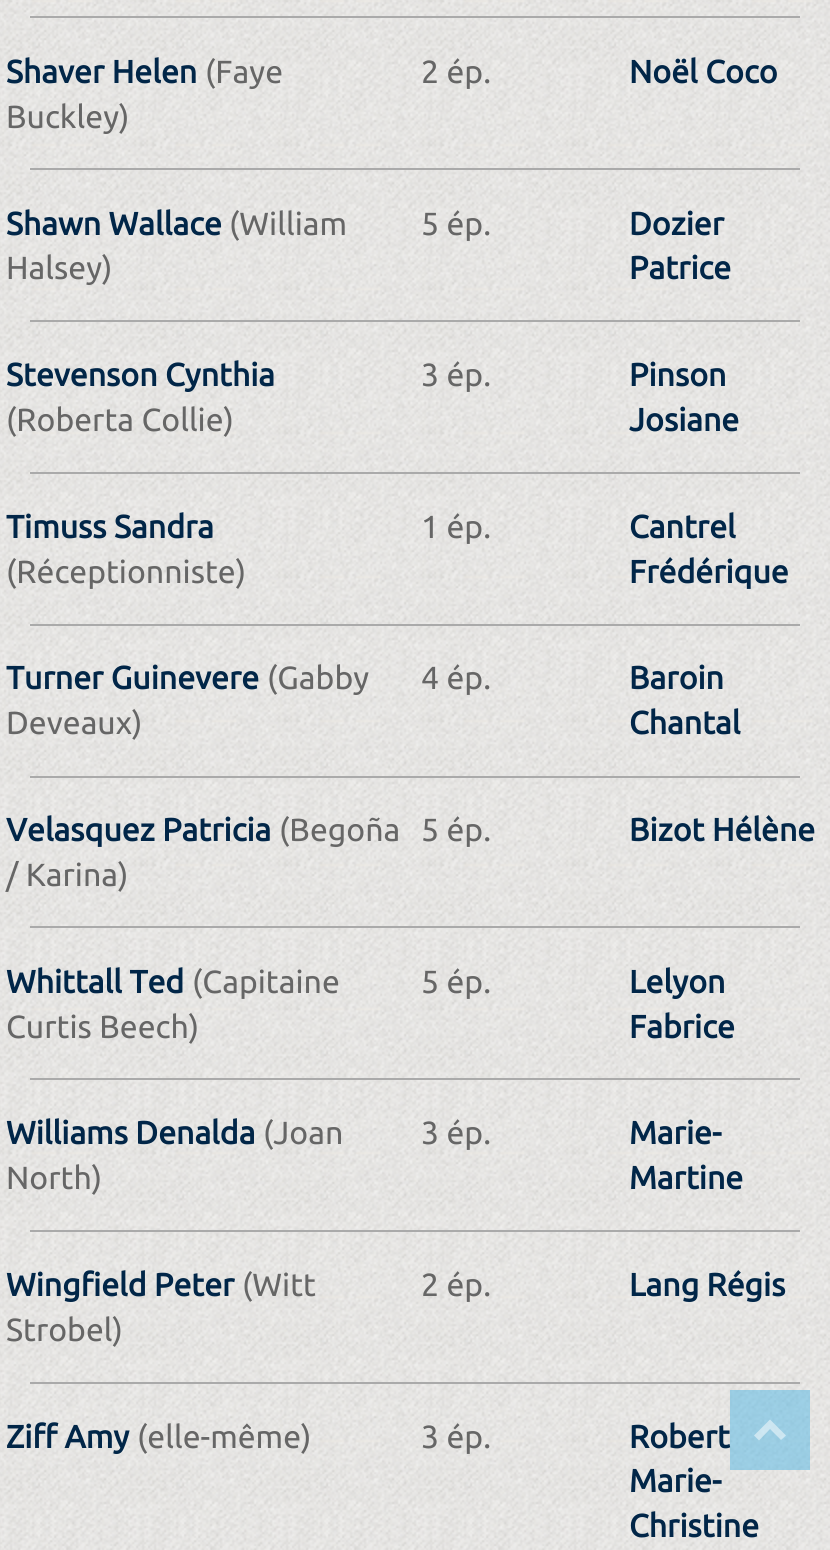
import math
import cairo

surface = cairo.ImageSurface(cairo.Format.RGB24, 830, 1550)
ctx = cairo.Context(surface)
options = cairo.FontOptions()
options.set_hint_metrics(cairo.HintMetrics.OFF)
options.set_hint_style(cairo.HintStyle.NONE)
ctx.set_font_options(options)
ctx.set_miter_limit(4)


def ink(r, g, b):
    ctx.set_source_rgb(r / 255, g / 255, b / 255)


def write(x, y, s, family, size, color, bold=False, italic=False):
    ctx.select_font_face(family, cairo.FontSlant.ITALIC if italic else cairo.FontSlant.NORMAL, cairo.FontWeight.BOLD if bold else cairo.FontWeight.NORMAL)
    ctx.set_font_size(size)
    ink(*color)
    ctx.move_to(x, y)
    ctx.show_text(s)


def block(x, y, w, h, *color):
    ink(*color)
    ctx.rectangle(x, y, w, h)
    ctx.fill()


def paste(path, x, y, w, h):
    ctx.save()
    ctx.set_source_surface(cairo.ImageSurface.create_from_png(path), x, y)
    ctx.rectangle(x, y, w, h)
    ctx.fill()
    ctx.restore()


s1 = dict(family="Ubuntu", size=32, color=(1, 38, 72), bold=True)
s2 = dict(family="Ubuntu", size=32, color=(102, 102, 102))

ink(255, 255, 255)
ctx.paint()
paste("pic1.png", 0, 0, 830, 1550)
block(30, 16, 770, 2, 170, 170, 170)
write(6, 83, "Shaver Helen", **s1)
write(205, 83, "(Faye", **s2)
write(6, 128, "Buckley)", **s2)
write(421, 83, "2 ép.", **s2)
write(629, 83, "Noël Coco", **s1)
block(30, 168, 770, 2, 170, 170, 170)
write(6, 235, "Shawn Wallace", **s1)
write(229, 235, "(William", **s2)
write(6, 279, "Halsey)", **s2)
write(421, 235, "5 ép.", **s2)
write(629, 235, "Dozier", **s1)
write(629, 279, "Patrice", **s1)
block(30, 320, 770, 2, 170, 170, 170)
write(6, 386, "Stevenson Cynthia", **s1)
write(6, 431, "(Roberta Collie)", **s2)
write(421, 386, "3 ép.", **s2)
write(629, 386, "Pinson", **s1)
write(629, 431, "Josiane", **s1)
block(30, 472, 770, 2, 170, 170, 170)
write(6, 538, "Timuss Sandra", **s1)
write(6, 583, "(Réceptionniste)", **s2)
write(421, 538, "1 ép.", **s2)
write(629, 538, "Cantrel", **s1)
write(629, 583, "Frédérique", **s1)
block(30, 624, 770, 2, 170, 170, 170)
write(6, 689, "Turner Guinevere", **s1)
write(267, 689, "(Gabby", **s2)
write(6, 734, "Deveaux)", **s2)
write(421, 689, "4 ép.", **s2)
write(629, 689, "Baroin", **s1)
write(629, 734, "Chantal", **s1)
block(30, 776, 770, 2, 170, 170, 170)
write(6, 841, "Velasquez Patricia", **s1)
write(279, 841, "(Begoña", **s2)
write(6, 886, "/ Karina)", **s2)
write(421, 841, "5 ép.", **s2)
write(629, 841, "Bizot Hélène", **s1)
block(30, 926, 770, 2, 170, 170, 170)
write(6, 993, "Whittall Ted", **s1)
write(192, 993, "(Capitaine", **s2)
write(6, 1038, "Curtis Beech)", **s2)
write(421, 993, "5 ép.", **s2)
write(629, 993, "Lelyon", **s1)
write(629, 1038, "Fabrice", **s1)
block(30, 1078, 770, 2, 170, 170, 170)
write(6, 1144, "Williams Denalda", **s1)
write(263, 1144, "(Joan", **s2)
write(6, 1189, "North)", **s2)
write(421, 1144, "3 ép.", **s2)
write(629, 1144, "Marie-", **s1)
write(629, 1189, "Martine", **s1)
block(30, 1230, 770, 2, 170, 170, 170)
write(6, 1296, "Wingfield Peter", **s1)
write(242, 1296, "(Witt", **s2)
write(6, 1341, "Strobel)", **s2)
write(421, 1296, "2 ép.", **s2)
write(629, 1296, "Lang Régis", **s1)
block(30, 1382, 770, 2, 170, 170, 170)
write(6, 1448, "Ziff Amy", **s1)
write(137, 1448, "(elle-même)", **s2)
write(421, 1448, "3 ép.", **s2)
write(629, 1448, "Robert", **s1)
write(629, 1492, "Marie-", **s1)
write(629, 1537, "Christine", **s1)
ctx.set_source_rgba(0.318, 0.718, 0.898, 0.5)
ctx.rectangle(730, 1390, 80, 80)
ctx.fill()
ctx.set_source_rgba(1, 1, 1, 0.5)
ctx.new_path()
ctx.move_to(770, 1419.5)
ctx.line_to(786, 1435.5)
ctx.line_to(781, 1440)
ctx.line_to(770, 1429)
ctx.line_to(759, 1440.5)
ctx.line_to(754, 1435.5)
ctx.close_path()
ctx.fill()
surface.write_to_png("screenshot.png")
